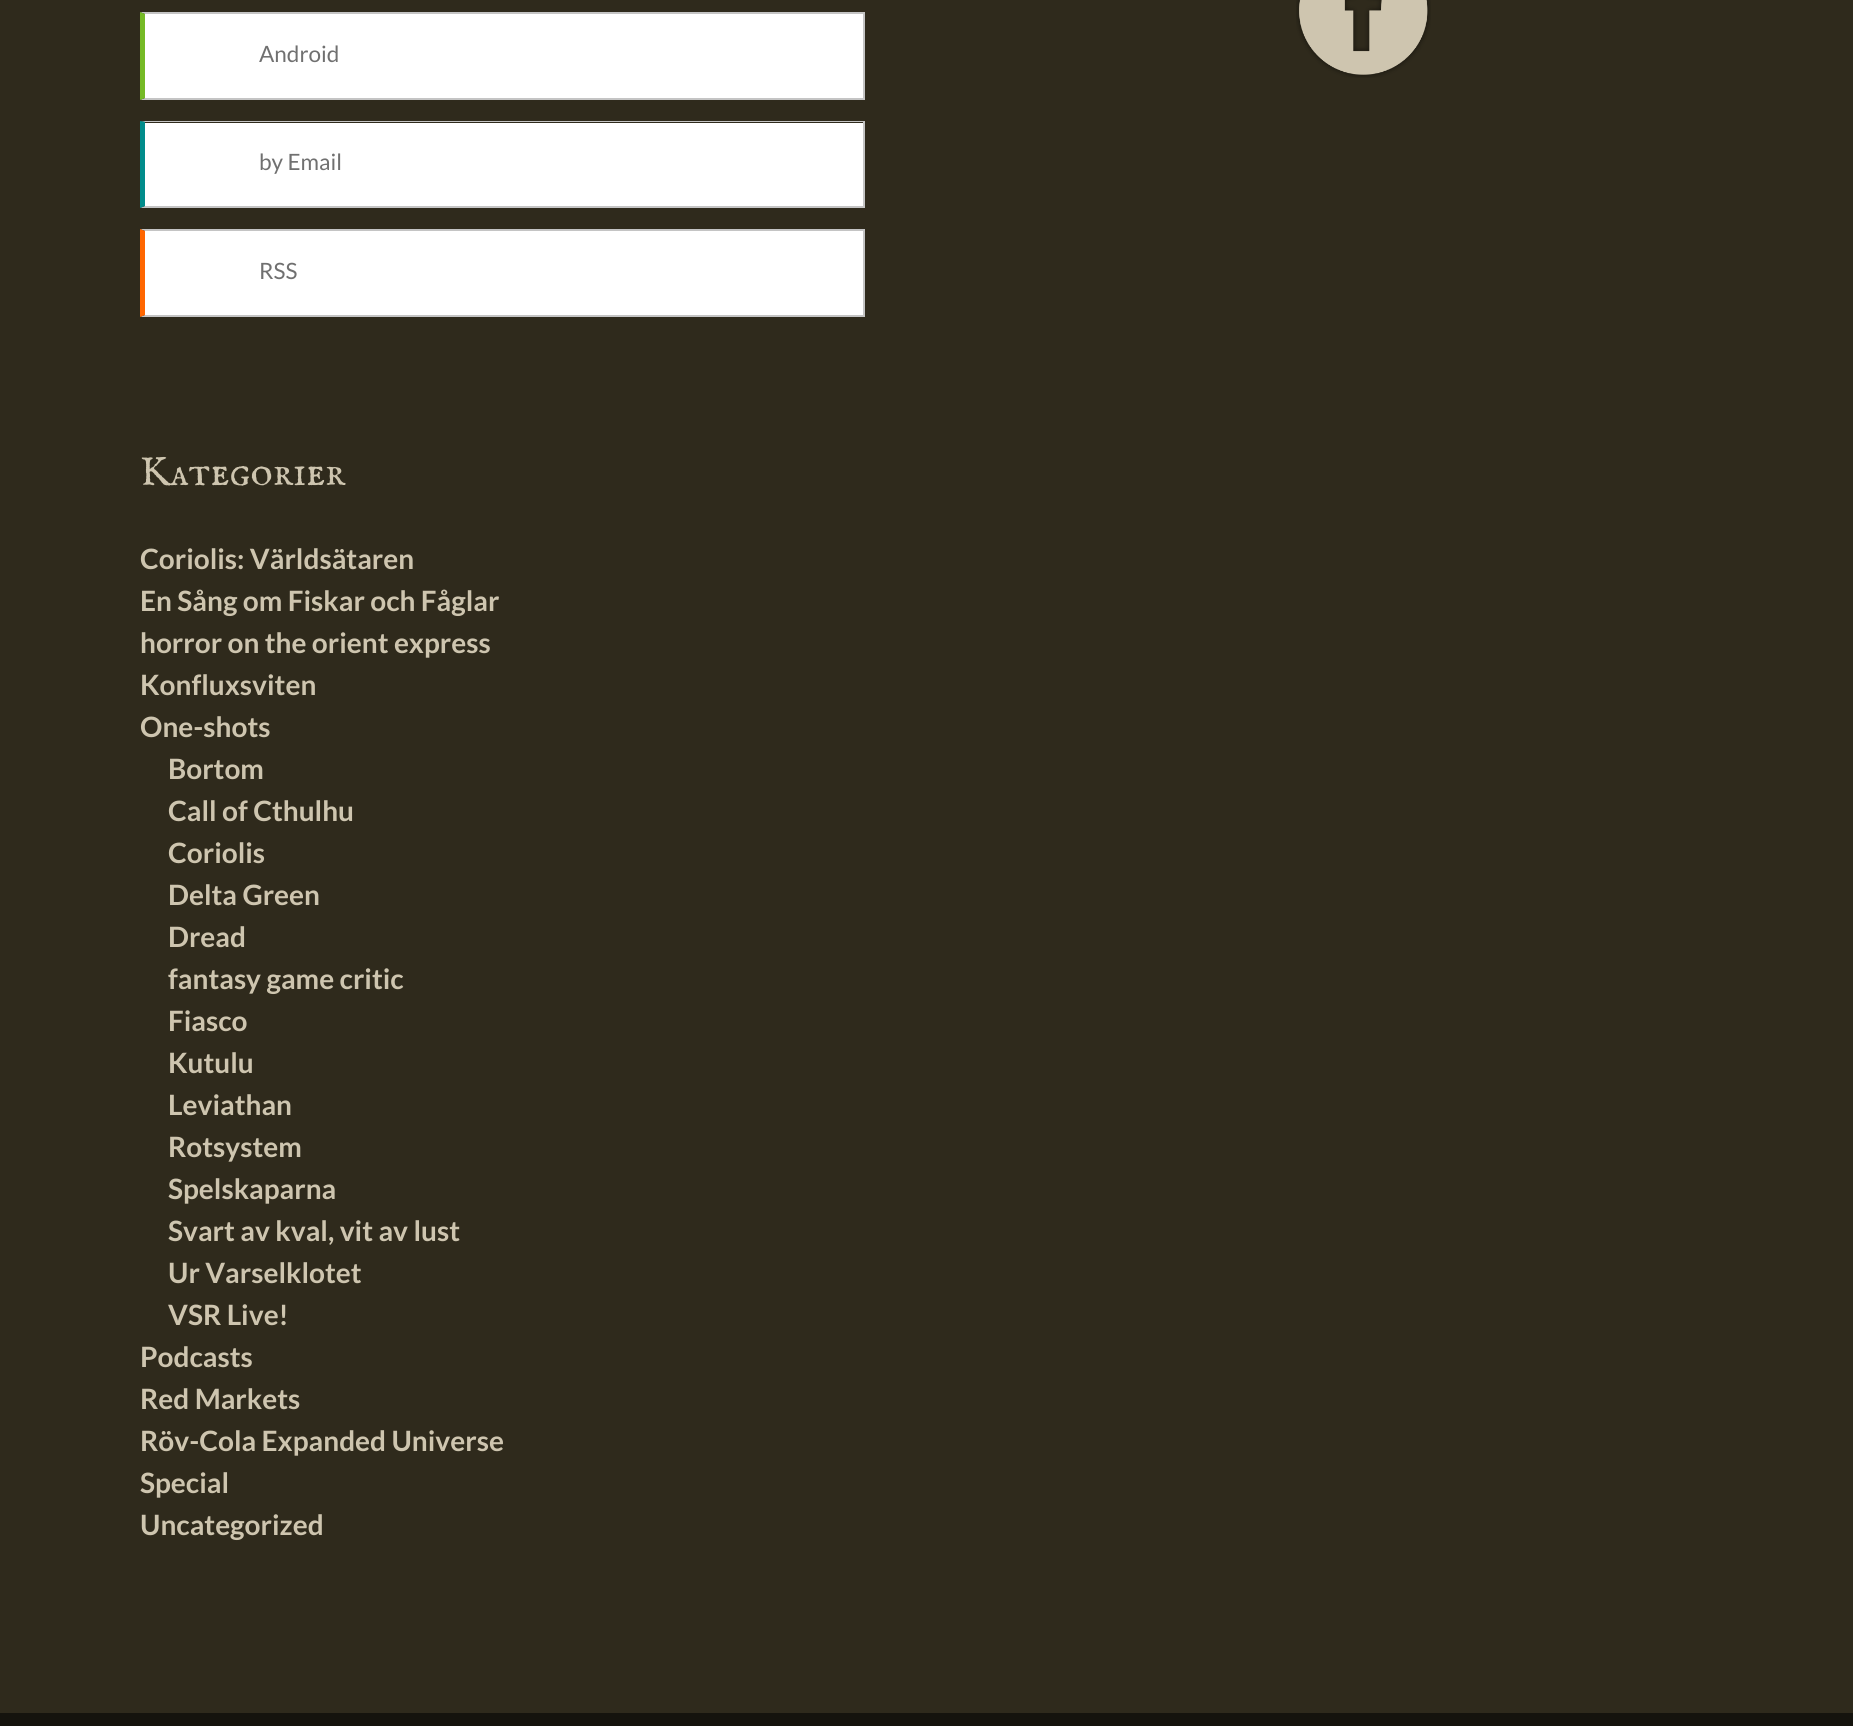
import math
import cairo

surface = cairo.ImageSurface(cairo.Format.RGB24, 1853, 1726)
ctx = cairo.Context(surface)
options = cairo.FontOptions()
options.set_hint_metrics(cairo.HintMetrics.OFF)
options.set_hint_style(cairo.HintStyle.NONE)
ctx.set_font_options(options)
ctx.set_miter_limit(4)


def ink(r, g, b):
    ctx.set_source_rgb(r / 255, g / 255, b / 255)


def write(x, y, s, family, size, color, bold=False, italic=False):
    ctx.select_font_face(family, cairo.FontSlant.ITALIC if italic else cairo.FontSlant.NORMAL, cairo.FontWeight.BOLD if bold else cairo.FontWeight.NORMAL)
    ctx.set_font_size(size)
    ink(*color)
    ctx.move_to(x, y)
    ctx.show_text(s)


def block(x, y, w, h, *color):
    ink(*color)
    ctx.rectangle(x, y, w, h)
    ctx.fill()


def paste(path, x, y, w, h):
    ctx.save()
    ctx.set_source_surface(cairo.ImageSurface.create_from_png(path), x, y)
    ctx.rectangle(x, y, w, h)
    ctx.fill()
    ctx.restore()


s1 = dict(family="Lato", size=22.5, color=(112, 112, 112))
s2 = dict(family="IM FELL English SC", size=42, color=(206, 197, 175))
s3 = dict(family="Lato", size=28, color=(206, 197, 175), bold=True)

ink(21, 19, 13)
ctx.paint()
block(0, 0, 1853, 1713, 47, 42, 28)
block(145, 14, 718, 84, 255, 255, 255)
ink(196, 196, 196)
ctx.new_path()
ctx.move_to(140, 12)
ctx.line_to(864, 12)
ctx.line_to(863, 14)
ctx.line_to(145, 14)
ctx.close_path()
ctx.fill()
block(863, 12, 2, 88, 196, 196, 196)
ctx.new_path()
ctx.move_to(864, 100)
ctx.line_to(140, 100)
ctx.line_to(145, 98)
ctx.line_to(863, 98)
ctx.close_path()
ctx.fill()
ink(117, 186, 38)
ctx.new_path()
ctx.move_to(140, 100)
ctx.line_to(140, 12)
ctx.line_to(145, 14)
ctx.line_to(145, 98)
ctx.close_path()
ctx.fill()
write(259, 62, "Android", **s1)
block(145, 123, 718, 83, 255, 255, 255)
ink(196, 196, 196)
ctx.new_path()
ctx.move_to(140, 121)
ctx.line_to(864, 121)
ctx.line_to(863, 122)
ctx.line_to(145, 122)
ctx.close_path()
ctx.fill()
block(863, 121, 2, 87, 196, 196, 196)
ctx.new_path()
ctx.move_to(864, 208)
ctx.line_to(140, 208)
ctx.line_to(145, 206)
ctx.line_to(863, 206)
ctx.close_path()
ctx.fill()
ink(1, 140, 139)
ctx.new_path()
ctx.move_to(140, 208)
ctx.line_to(140, 121)
ctx.line_to(145, 122)
ctx.line_to(145, 206)
ctx.close_path()
ctx.fill()
write(259, 170, "by Email", **s1)
block(145, 231, 718, 84, 255, 255, 255)
ink(196, 196, 196)
ctx.new_path()
ctx.move_to(140, 229)
ctx.line_to(864, 229)
ctx.line_to(863, 231)
ctx.line_to(145, 231)
ctx.close_path()
ctx.fill()
block(863, 229, 2, 88, 196, 196, 196)
ctx.new_path()
ctx.move_to(864, 317)
ctx.line_to(140, 317)
ctx.line_to(145, 315)
ctx.line_to(863, 315)
ctx.close_path()
ctx.fill()
ink(255, 102, 0)
ctx.new_path()
ctx.move_to(140, 317)
ctx.line_to(140, 229)
ctx.line_to(145, 231)
ctx.line_to(145, 315)
ctx.close_path()
ctx.fill()
write(259, 279, "RSS", **s1)
paste("pic1.png", 1296, 0, 135, 78)
write(140, 485, "Kategorier", **s2)
write(140, 569, "Coriolis: Världsätaren", **s3)
write(140, 611, "En Sång om Fiskar och Fåglar", **s3)
write(140, 653, "horror on the orient express", **s3)
write(140, 695, "Konfluxsviten", **s3)
write(140, 737, "One-shots", **s3)
write(168, 779, "Bortom", **s3)
write(168, 821, "Call of Cthulhu", **s3)
write(168, 863, "Coriolis", **s3)
write(168, 905, "Delta Green", **s3)
write(168, 947, "Dread", **s3)
write(168, 989, "fantasy game critic", **s3)
write(168, 1031, "Fiasco", **s3)
write(168, 1073, "Kutulu", **s3)
write(168, 1115, "Leviathan", **s3)
write(168, 1157, "Rotsystem", **s3)
write(168, 1199, "Spelskaparna", **s3)
write(168, 1241, "Svart av kval, vit av lust", **s3)
write(168, 1283, "Ur Varselklotet", **s3)
write(168, 1325, "VSR Live!", **s3)
write(140, 1367, "Podcasts", **s3)
write(140, 1409, "Red Markets", **s3)
write(140, 1451, "Röv-Cola Expanded Universe", **s3)
write(140, 1493, "Special", **s3)
write(140, 1535, "Uncategorized", **s3)
surface.write_to_png("screenshot.png")
